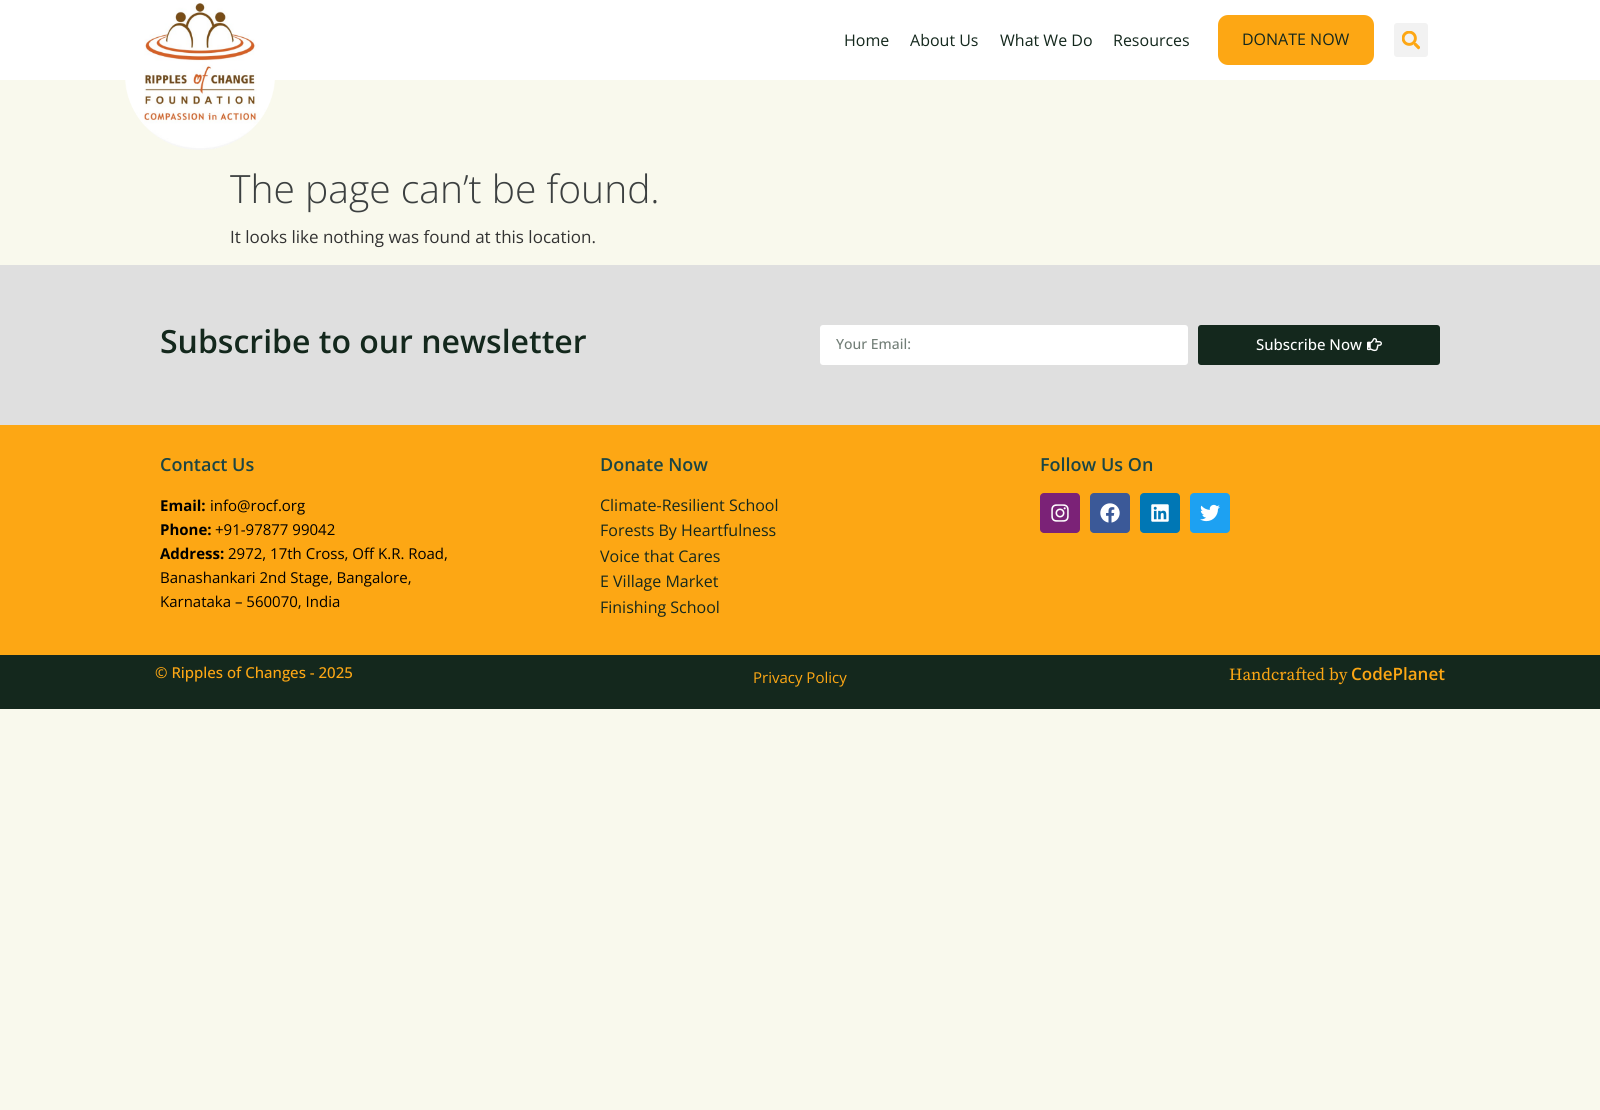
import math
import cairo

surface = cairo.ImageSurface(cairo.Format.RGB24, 1600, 1110)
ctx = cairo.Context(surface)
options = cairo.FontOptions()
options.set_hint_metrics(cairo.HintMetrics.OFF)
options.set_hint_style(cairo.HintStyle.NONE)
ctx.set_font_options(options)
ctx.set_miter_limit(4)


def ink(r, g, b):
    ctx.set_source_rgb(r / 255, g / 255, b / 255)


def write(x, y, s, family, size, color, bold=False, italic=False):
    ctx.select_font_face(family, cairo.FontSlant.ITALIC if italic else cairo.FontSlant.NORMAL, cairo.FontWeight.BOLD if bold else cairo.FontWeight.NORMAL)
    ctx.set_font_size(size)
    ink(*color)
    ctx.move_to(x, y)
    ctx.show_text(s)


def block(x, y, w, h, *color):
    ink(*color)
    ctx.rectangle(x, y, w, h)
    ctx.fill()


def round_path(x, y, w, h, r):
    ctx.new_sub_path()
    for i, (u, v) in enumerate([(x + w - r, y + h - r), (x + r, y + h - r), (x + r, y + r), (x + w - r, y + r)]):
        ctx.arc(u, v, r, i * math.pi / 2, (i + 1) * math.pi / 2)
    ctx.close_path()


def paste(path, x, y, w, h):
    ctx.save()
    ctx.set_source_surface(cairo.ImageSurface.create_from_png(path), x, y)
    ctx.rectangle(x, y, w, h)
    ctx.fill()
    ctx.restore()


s1 = dict(family="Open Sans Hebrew", size=16, color=(20, 40, 29))
s2 = dict(family="Open Sans", size=16, color=(20, 40, 29))
s3 = dict(family="Open Sans Light", size=39, color=(60, 64, 64))
s4 = dict(family="Open Sans", size=17, color=(51, 51, 51))
s5 = dict(family="Open Sans SemiBold", size=32, color=(20, 40, 29))
s6 = dict(family="Open Sans Medium", size=14, color=(114, 126, 119))
s7 = dict(family="Open Sans Medium", size=15, color=(255, 255, 255))
s8 = dict(family="Open Sans SemiBold", size=18, color=(27, 69, 68))
s9 = dict(family="Open Sans", size=15, color=(0, 0, 0), bold=True)
s10 = dict(family="Open Sans", size=15, color=(0, 0, 0))
s11 = dict(family="Open Sans Medium", size=15, color=(253, 167, 20))
s12 = dict(family="Open Sans", size=15, color=(253, 167, 20))
s13 = dict(family="Source Serif Pro", size=17, color=(253, 167, 20))
s14 = dict(family="Open Sans SemiBold", size=17, color=(253, 167, 20))

ink(249, 249, 237)
ctx.paint()
block(0, 0, 1600, 80, 255, 255, 255)
paste("pic1.png", 125, 3, 150, 147)
write(844, 46, "Home", **s1)
write(910, 46, "About Us", **s1)
write(1000, 46, "What We Do", **s1)
write(1113, 46, "Resources", **s1)
ink(253, 167, 20)
round_path(1218, 15, 156, 50, 10)
ctx.fill()
write(1242, 45, "DONATE NOW", **s2)
ink(242, 242, 242)
round_path(1394, 23, 34, 34, 3)
ctx.fill()
paste("pic2.png", 1402, 31, 18, 19)
write(230, 203, "The page can’t be found.", **s3)
write(230, 243, "It looks like nothing was found at this location.", **s4)
block(0, 265, 1600, 160, 223, 223, 223)
write(160, 353, "Subscribe to our newsletter", **s5)
ink(255, 255, 255)
round_path(820, 325, 368, 40, 3)
ctx.fill()
write(836, 349, "Your Email:", **s6)
ink(20, 40, 29)
round_path(1198, 325, 242, 40, 3)
ctx.fill()
write(1256, 350, "Subscribe Now", **s7)
paste("pic3.png", 1367, 338, 15, 14)
block(0, 425, 1600, 230, 253, 167, 20)
write(160, 471, "Contact Us", **s8)
write(160, 511, "Email:", **s9)
write(210, 511, "info@rocf.org", **s10)
write(160, 535, "Phone:", **s9)
write(215, 535, "+91-97877 99042", **s10)
write(160, 559, "Address:", **s9)
write(228, 559, "2972, 17th Cross, Off K.R. Road,", **s10)
write(160, 583, "Banashankari 2nd Stage, Bangalore,", **s10)
write(160, 607, "Karnataka – 560070, India", **s10)
write(600, 471, "Donate Now", **s8)
write(600, 511, "Climate-Resilient School", **s2)
write(600, 536, "Forests By Heartfulness", **s2)
write(600, 562, "Voice that Cares", **s2)
write(600, 587, "E Village Market", **s2)
write(600, 613, "Finishing School", **s2)
write(1040, 471, "Follow Us On", **s8)
ink(123, 34, 119)
round_path(1040, 493, 40, 40, 4)
ctx.fill()
paste("pic4.png", 1051, 504, 18, 18)
ink(59, 89, 152)
round_path(1090, 493, 40, 40, 4)
ctx.fill()
paste("pic5.png", 1100, 503, 20, 20)
ink(0, 119, 181)
round_path(1140, 493, 40, 40, 4)
ctx.fill()
paste("pic6.png", 1151, 504, 18, 18)
ink(29, 161, 242)
round_path(1190, 493, 40, 40, 4)
ctx.fill()
paste("pic7.png", 1200, 504, 20, 18)
block(0, 655, 1600, 54, 20, 40, 29)
write(155, 678, "© Ripples of Changes - 2025", **s11)
write(753, 683, "Privacy Policy", **s12)
write(1229, 680, "Handcrafted by", **s13)
write(1351, 680, "CodePlanet", **s14)
surface.write_to_png("screenshot.png")
